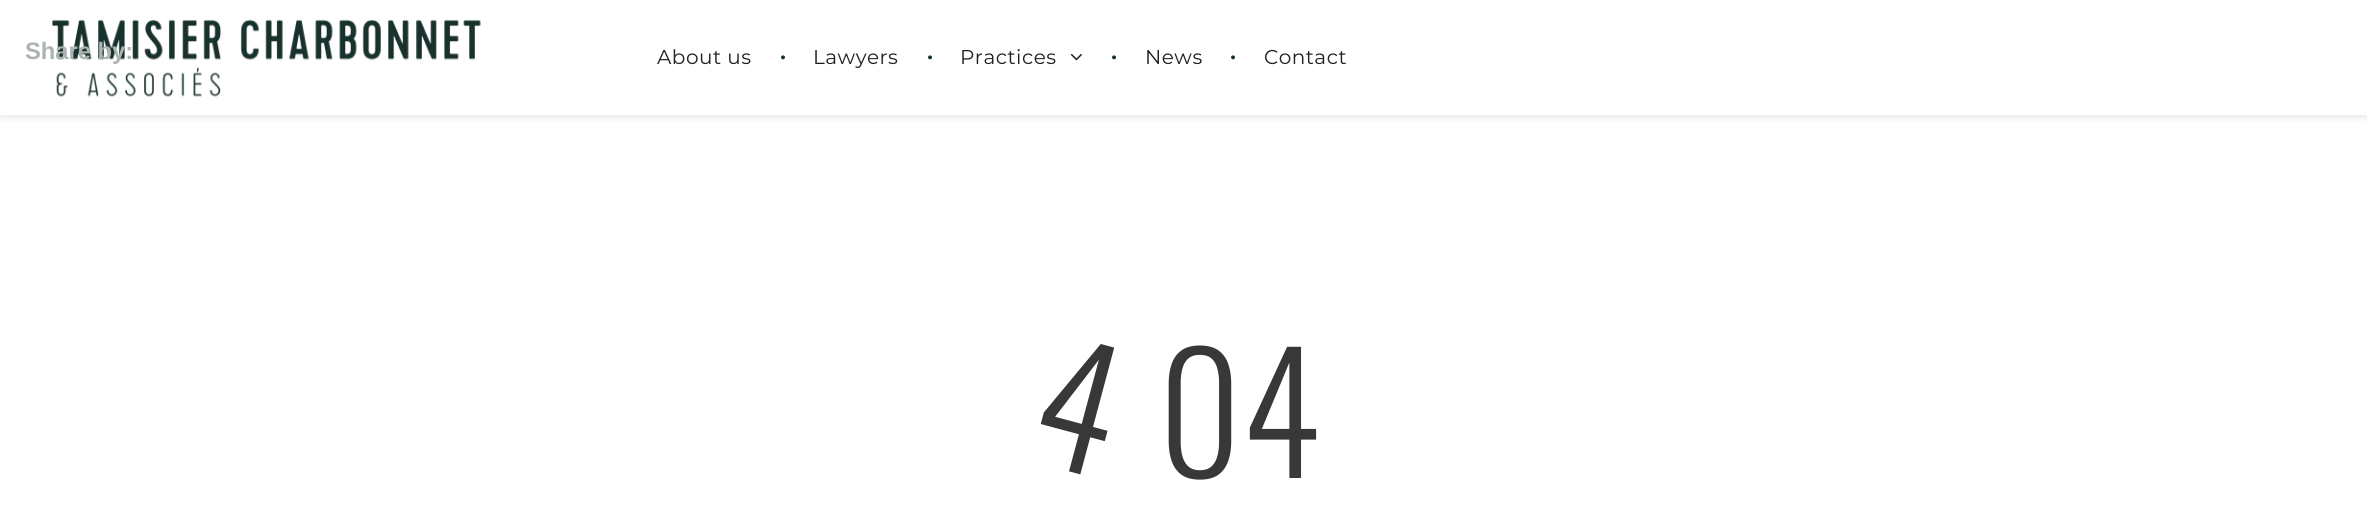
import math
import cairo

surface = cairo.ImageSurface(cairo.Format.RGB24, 2367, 506)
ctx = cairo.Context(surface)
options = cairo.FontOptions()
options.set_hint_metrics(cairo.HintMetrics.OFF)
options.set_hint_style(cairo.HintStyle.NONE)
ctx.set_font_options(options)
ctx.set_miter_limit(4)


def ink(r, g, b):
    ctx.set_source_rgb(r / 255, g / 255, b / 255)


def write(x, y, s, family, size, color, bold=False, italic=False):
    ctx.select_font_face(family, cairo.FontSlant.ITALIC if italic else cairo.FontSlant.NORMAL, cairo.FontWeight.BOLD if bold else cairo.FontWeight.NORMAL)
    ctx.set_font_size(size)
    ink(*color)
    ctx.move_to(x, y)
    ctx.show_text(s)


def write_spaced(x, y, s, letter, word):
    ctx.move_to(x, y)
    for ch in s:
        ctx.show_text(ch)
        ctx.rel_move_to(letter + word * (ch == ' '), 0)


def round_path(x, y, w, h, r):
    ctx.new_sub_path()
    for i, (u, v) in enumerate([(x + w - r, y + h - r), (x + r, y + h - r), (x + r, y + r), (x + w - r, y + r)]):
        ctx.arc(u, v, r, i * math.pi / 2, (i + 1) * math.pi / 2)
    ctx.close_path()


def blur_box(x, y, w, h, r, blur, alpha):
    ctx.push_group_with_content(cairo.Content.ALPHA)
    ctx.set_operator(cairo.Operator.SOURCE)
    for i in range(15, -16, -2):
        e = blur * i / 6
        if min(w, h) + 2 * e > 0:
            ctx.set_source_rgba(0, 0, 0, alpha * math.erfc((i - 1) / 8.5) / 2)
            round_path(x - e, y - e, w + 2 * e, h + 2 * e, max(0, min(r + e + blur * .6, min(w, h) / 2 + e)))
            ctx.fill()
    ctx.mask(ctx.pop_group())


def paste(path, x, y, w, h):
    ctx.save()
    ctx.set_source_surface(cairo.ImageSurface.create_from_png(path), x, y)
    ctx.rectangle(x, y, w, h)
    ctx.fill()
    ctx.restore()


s1 = dict(family="Liberation Sans", size=23.75, color=(171, 180, 178), bold=True)
s2 = dict(family="Montserrat", size=20, color=(24, 51, 47), bold=True)
s3 = dict(family="Oswald Light", size=162, color=(56, 56, 56))

ink(255, 255, 255)
ctx.paint()
ctx.save()
ctx.rectangle(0, 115, 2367, 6)
ctx.clip()
ink(0, 0, 0)
blur_box(0, -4, 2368, 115, 0, 7, 0.25)
ctx.restore()
paste("pic1.png", 52, 19, 429, 78)
write(25, 59, "Share by:", **s1)
ctx.select_font_face("Montserrat")
ctx.set_font_size(20)
ink(32, 32, 32)
write_spaced(657, 64, "About us", 0.5, 0)
write(780, 63, "·", **s2)
ctx.select_font_face("Montserrat")
ink(32, 32, 32)
write_spaced(813, 64, "Lawyers", 0.5, 0)
write(927, 63, "·", **s2)
ctx.select_font_face("Montserrat")
ink(32, 32, 32)
write_spaced(960, 64, "Practices", 0.5, 0)
paste("pic2.png", 1070, 53, 12, 8)
write(1111, 63, "·", **s2)
ctx.select_font_face("Montserrat")
ink(32, 32, 32)
write_spaced(1145, 64, "News", 0.5, 0)
write(1230, 63, "·", **s2)
ctx.select_font_face("Montserrat")
ink(32, 32, 32)
write_spaced(1264, 64, "Contact", 0.5, 0)
ctx.save()
ctx.translate(1023, 459)
ctx.rotate(15 * math.pi / 180)
write(0, 0, "4", **s3)
ctx.restore()
write(1158, 478, "04", **s3)
surface.write_to_png("screenshot.png")
